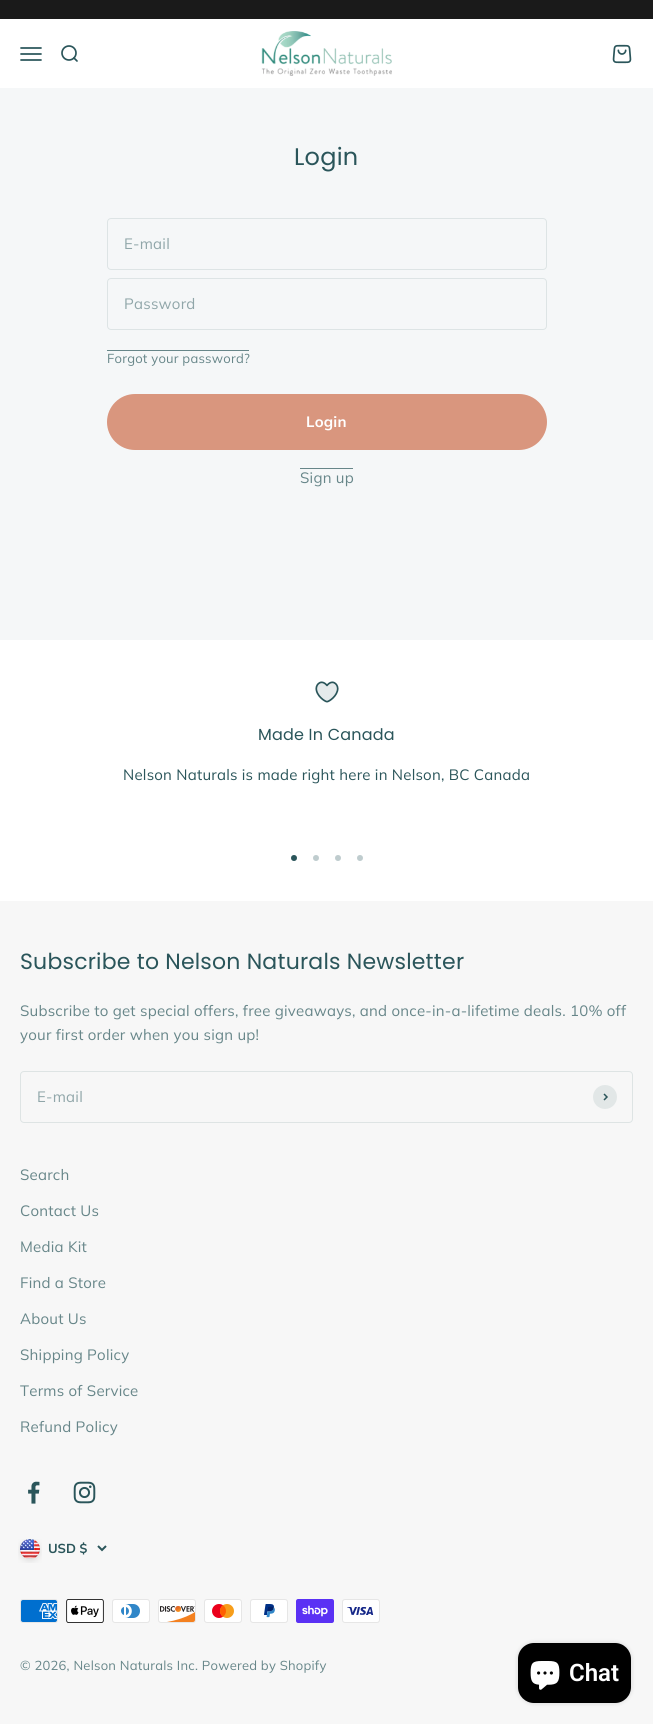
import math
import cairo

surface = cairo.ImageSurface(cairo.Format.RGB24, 653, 1724)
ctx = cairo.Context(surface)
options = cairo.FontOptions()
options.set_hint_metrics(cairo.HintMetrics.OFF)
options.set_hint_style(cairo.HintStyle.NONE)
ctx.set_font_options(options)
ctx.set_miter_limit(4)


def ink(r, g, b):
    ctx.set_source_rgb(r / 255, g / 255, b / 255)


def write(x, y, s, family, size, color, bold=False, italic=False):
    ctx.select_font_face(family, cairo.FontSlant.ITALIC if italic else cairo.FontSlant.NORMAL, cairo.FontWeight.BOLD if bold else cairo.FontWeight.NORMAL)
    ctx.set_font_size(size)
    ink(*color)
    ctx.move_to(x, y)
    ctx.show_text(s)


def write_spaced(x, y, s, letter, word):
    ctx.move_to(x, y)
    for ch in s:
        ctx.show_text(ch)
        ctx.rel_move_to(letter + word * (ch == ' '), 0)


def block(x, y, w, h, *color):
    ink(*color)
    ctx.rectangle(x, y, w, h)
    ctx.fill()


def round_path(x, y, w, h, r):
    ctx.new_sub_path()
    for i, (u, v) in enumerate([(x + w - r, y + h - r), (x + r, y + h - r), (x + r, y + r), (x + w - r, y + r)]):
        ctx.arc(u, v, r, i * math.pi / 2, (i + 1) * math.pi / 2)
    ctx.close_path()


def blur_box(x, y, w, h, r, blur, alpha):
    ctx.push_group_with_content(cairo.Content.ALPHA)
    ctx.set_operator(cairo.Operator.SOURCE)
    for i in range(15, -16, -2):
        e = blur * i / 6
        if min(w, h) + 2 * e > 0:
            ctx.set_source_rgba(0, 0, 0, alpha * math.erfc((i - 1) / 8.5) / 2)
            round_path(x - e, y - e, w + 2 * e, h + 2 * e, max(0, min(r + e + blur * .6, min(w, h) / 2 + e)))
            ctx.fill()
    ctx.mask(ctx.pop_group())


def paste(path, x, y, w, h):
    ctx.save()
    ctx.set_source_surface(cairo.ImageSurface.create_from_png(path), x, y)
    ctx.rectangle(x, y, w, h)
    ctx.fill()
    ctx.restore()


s1 = dict(family="Muli", size=13, color=(42, 85, 90), bold=True)
s2 = dict(family="Roboto SemiBold", size=24, color=(255, 255, 255))

ink(255, 255, 255)
ctx.paint()
block(0, 0, 653, 19, 26, 26, 26)
paste("pic1.png", 20, 47, 22, 14)
paste("pic2.png", 61, 45, 17, 17)
paste("pic3.png", 261, 31, 131, 45)
paste("pic4.png", 612, 44, 20, 20)
block(0, 88, 653, 552, 245, 247, 248)
ctx.select_font_face("Poppins")
ctx.set_font_size(24)
ink(42, 85, 90)
write_spaced(294, 165, "Login", 0.25, 0)
round_path(107.5, 218.5, 439, 51, 3.5)
ink(221, 228, 229)
ctx.set_line_width(1)
ctx.stroke()
ctx.select_font_face("Muli")
ctx.set_font_size(15)
ink(144, 166, 169)
write_spaced(124, 249, "E-mail", 0.23, 0)
round_path(107.5, 278.5, 439, 51, 3.5)
ink(221, 228, 229)
ctx.stroke()
ink(144, 166, 169)
write_spaced(124, 309, "Password", 0.23, 0)
ctx.set_font_size(13)
ink(103, 134, 137)
write_spaced(107, 363, "Forgot your password?", 0.23, 0)
block(107, 350, 142, 1, 103, 134, 137)
ink(217, 150, 126)
round_path(107, 394, 440, 56, 28)
ctx.fill()
ctx.select_font_face("Muli", cairo.FontSlant.NORMAL, cairo.FontWeight.BOLD)
ctx.set_font_size(15)
ink(255, 255, 255)
write_spaced(306, 427, "Login", 0.23, 0)
ctx.select_font_face("Muli")
ink(103, 134, 137)
write_spaced(300, 483, "Sign up", 0.23, 0)
block(300, 468, 53, 1, 103, 134, 137)
paste("pic5.png", 315, 681, 24, 22)
ctx.select_font_face("Poppins")
ctx.set_font_size(16)
ink(42, 85, 90)
write_spaced(258, 740, "Made In Canada", 0.2, 0)
ctx.select_font_face("Muli")
ctx.set_font_size(15)
write_spaced(123, 780, "Nelson Naturals is made right here in Nelson, BC Canada", 0.23, 0)
ctx.new_path()
ctx.arc(294, 858, 3, 0, 2 * math.pi)
ctx.fill()
ink(191, 204, 206)
ctx.arc(316, 858, 3, 0, 2 * math.pi)
ctx.fill()
ctx.arc(338, 858, 3, 0, 2 * math.pi)
ctx.fill()
ctx.arc(360, 858, 3, 0, 2 * math.pi)
ctx.fill()
block(0, 901, 653, 823, 247, 247, 247)
ctx.select_font_face("Poppins")
ctx.set_font_size(22)
ink(42, 85, 90)
write_spaced(20, 969, "Subscribe to Nelson Naturals Newsletter", 0.2, 0)
ctx.select_font_face("Muli")
ctx.set_font_size(15)
ink(103, 134, 137)
write_spaced(20, 1016, "Subscribe to get special offers, free giveaways, and once-in-a-lifetime deals. 10% off", 0.23, 0)
write_spaced(20, 1040, "your first order when you sign up!", 0.23, 0)
round_path(20.5, 1071.5, 612, 51, 3.5)
ink(222, 228, 228)
ctx.stroke()
ink(144, 166, 169)
write_spaced(37, 1102, "E-mail", 0.23, 0)
ink(226, 231, 231)
ctx.new_path()
ctx.arc(605, 1097, 12, 0, 2 * math.pi)
ctx.fill()
ctx.new_path()
ctx.move_to(604, 1100)
ctx.line_to(607, 1097)
ctx.line_to(604, 1094)
ink(42, 85, 90)
ctx.set_line_width(1.5)
ctx.stroke()
ink(103, 134, 137)
write_spaced(20, 1180, "Search", 0.23, 0)
write_spaced(20, 1216, "Contact Us", 0.23, 0)
write_spaced(20, 1252, "Media Kit", 0.23, 0)
write_spaced(20, 1288, "Find a Store", 0.23, 0)
write_spaced(20, 1324, "About Us", 0.23, 0)
write_spaced(20, 1360, "Shipping Policy", 0.23, 0)
write_spaced(20, 1396, "Terms of Service", 0.23, 0)
write_spaced(20, 1432, "Refund Policy", 0.23, 0)
paste("pic6.png", 28, 1481, 12, 23)
paste("pic7.png", 73, 1481, 23, 23)
paste("pic8.png", 18, 1539, 24, 24)
write(48, 1553, "USD $", **s1)
ctx.new_path()
ctx.move_to(98, 1546)
ctx.line_to(102, 1550)
ctx.line_to(106, 1546)
ctx.set_line_width(2)
ctx.stroke()
paste("pic9.png", 20, 1599, 38, 24)
paste("pic10.png", 66, 1599, 38, 24)
paste("pic11.png", 112, 1599, 38, 24)
paste("pic12.png", 158, 1599, 38, 24)
paste("pic13.png", 204, 1599, 38, 24)
paste("pic14.png", 250, 1599, 38, 24)
paste("pic15.png", 296, 1599, 38, 24)
paste("pic16.png", 342, 1599, 38, 24)
ctx.select_font_face("Muli")
ink(103, 134, 137)
write_spaced(20, 1670, "© 2026, Nelson Naturals Inc. Powered by Shopify", 0.23, 0)
ink(0, 0, 0)
blur_box(518, 1643, 113, 60, 16, 2.5, 0.15)
ink(0, 0, 0)
round_path(518, 1643, 113, 60, 16)
ctx.fill()
paste("pic17.png", 530, 1661, 30, 29)
write(569, 1681, "Chat", **s2)
surface.write_to_png("screenshot.png")
